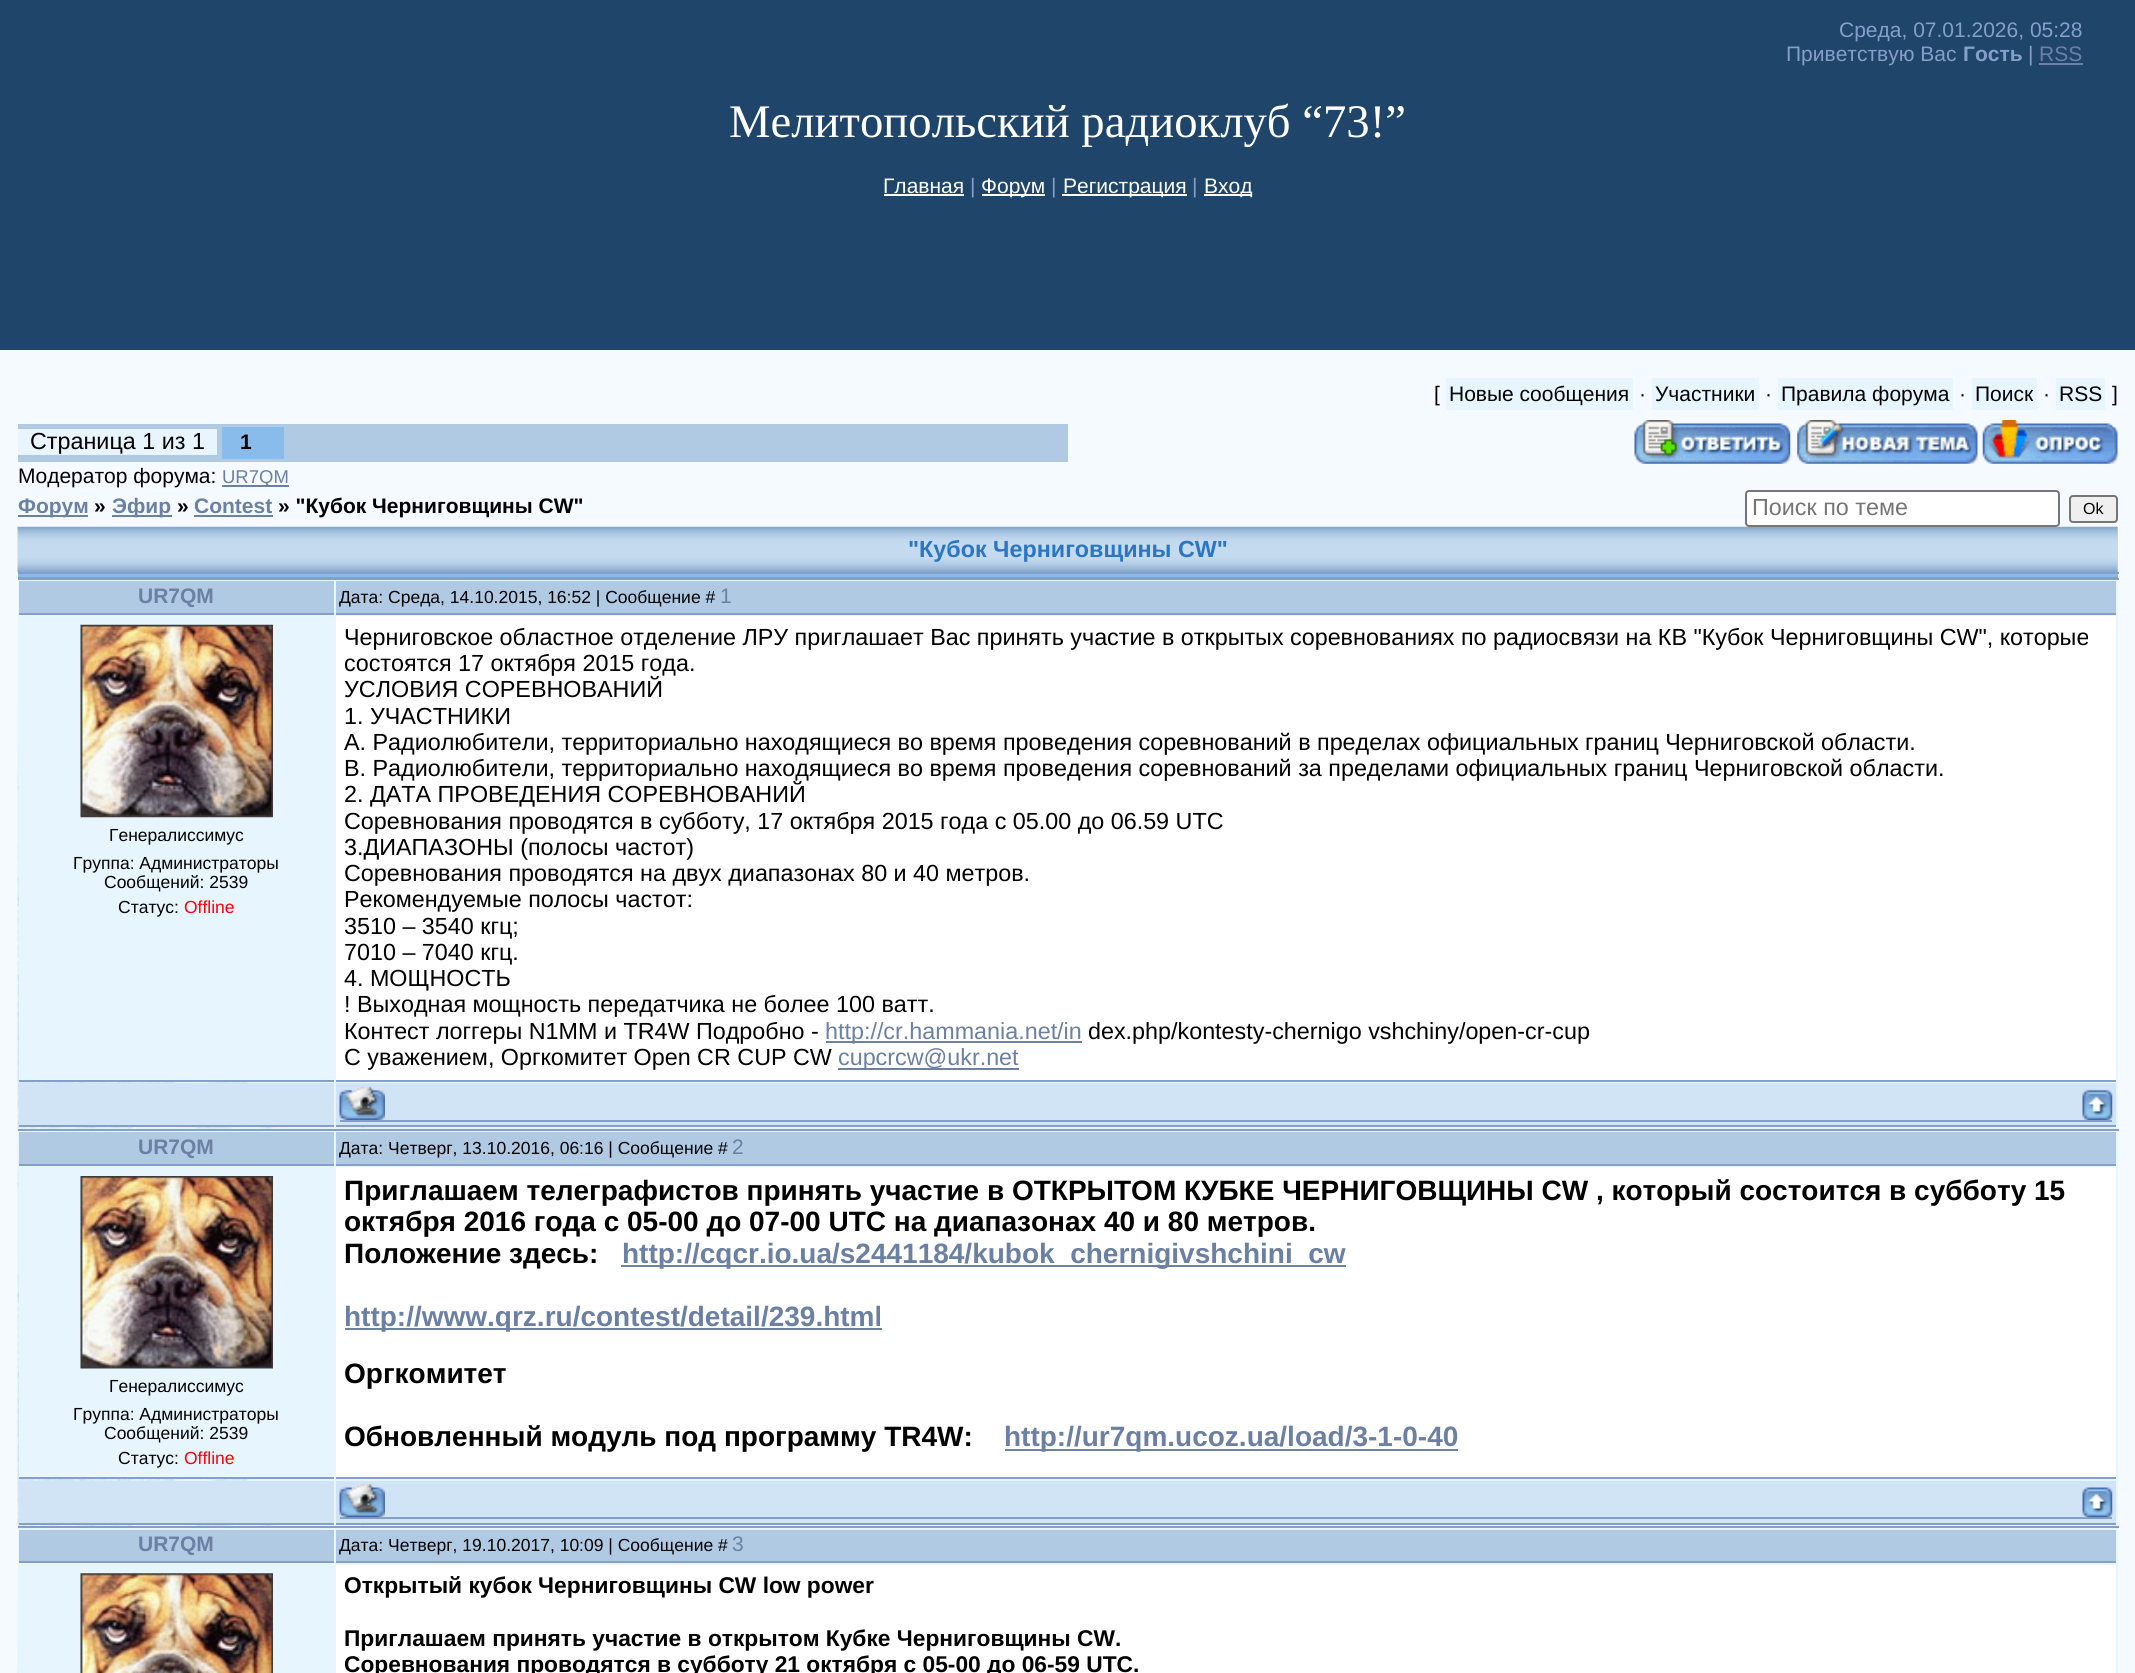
import math
import cairo

surface = cairo.ImageSurface(cairo.Format.RGB24, 2135, 1673)
ctx = cairo.Context(surface)
options = cairo.FontOptions()
options.set_hint_metrics(cairo.HintMetrics.OFF)
options.set_hint_style(cairo.HintStyle.NONE)
ctx.set_font_options(options)
ctx.set_miter_limit(4)


def ink(r, g, b):
    ctx.set_source_rgb(r / 255, g / 255, b / 255)


def write(x, y, s, family, size, color, bold=False, italic=False):
    ctx.select_font_face(family, cairo.FontSlant.ITALIC if italic else cairo.FontSlant.NORMAL, cairo.FontWeight.BOLD if bold else cairo.FontWeight.NORMAL)
    ctx.set_font_size(size)
    ink(*color)
    ctx.move_to(x, y)
    ctx.show_text(s)


def block(x, y, w, h, *color):
    ink(*color)
    ctx.rectangle(x, y, w, h)
    ctx.fill()


def round_path(x, y, w, h, r):
    ctx.new_sub_path()
    for i, (u, v) in enumerate([(x + w - r, y + h - r), (x + r, y + h - r), (x + r, y + r), (x + w - r, y + r)]):
        ctx.arc(u, v, r, i * math.pi / 2, (i + 1) * math.pi / 2)
    ctx.close_path()


def paste(path, x, y, w, h):
    ctx.save()
    ctx.set_source_surface(cairo.ImageSurface.create_from_png(path), x, y)
    ctx.rectangle(x, y, w, h)
    ctx.fill()
    ctx.restore()


s1 = dict(family="Liberation Sans", size=21, color=(132, 159, 202))
s2 = dict(family="Liberation Sans", size=21, color=(132, 159, 202), bold=True)
s3 = dict(family="Liberation Sans", size=21, color=(107, 128, 163))
s4 = dict(family="Liberation Serif", size=46.7, color=(255, 255, 255))
s5 = dict(family="Liberation Sans", size=21, color=(255, 255, 255))
s6 = dict(family="Liberation Sans", size=21, color=(0, 0, 0))
s7 = dict(family="Liberation Sans", size=23.33, color=(0, 0, 0))
s8 = dict(family="Liberation Sans", size=21, color=(0, 0, 0), bold=True)
s9 = dict(family="Liberation Sans", size=18.5, color=(107, 128, 163))
s10 = dict(family="Liberation Sans", size=21, color=(107, 128, 163), bold=True)
s11 = dict(family="Liberation Sans", size=23.33, color=(117, 117, 117))
s12 = dict(family="Liberation Sans", size=16, color=(0, 0, 0))
s13 = dict(family="Liberation Sans", size=23.33, color=(42, 117, 196), bold=True)
s14 = dict(family="Liberation Sans", size=17.5, color=(0, 0, 0))
s15 = dict(family="Liberation Sans", size=17.5, color=(255, 0, 0))
s16 = dict(family="Liberation Sans", size=23.33, color=(107, 128, 163))
s17 = dict(family="Liberation Sans", size=28, color=(0, 0, 0), bold=True)
s18 = dict(family="Liberation Sans", size=28, color=(107, 128, 163), bold=True)
s19 = dict(family="Liberation Sans", size=22.75, color=(0, 0, 0), bold=True)

ink(244, 250, 255)
ctx.paint()
block(0, 0, 2135, 350, 32, 69, 106)
write(1839, 37, "Среда, 07.01.2026, 05:28", **s1)
write(1786, 61, "Приветствую Вас", **s1)
write(1963, 61, "Гость", **s2)
write(2028, 61, "|", **s1)
write(2039, 61, "RSS", **s3)
block(2039, 63, 44, 2, 107, 128, 163)
write(729, 137, "Мелитопольский радиоклуб “73!”", **s4)
write(883, 193, "Главная", **s5)
block(884, 194, 80, 2, 255, 255, 255)
write(970, 193, "|", **s1)
block(982, 194, 63, 2, 255, 255, 255)
write(981, 193, "Форум", **s5)
write(1051, 193, "|", **s1)
block(1062, 194, 125, 2, 255, 255, 255)
write(1063, 193, "Регистрация", **s5)
write(1192, 193, "|", **s1)
block(1204, 194, 47, 2, 255, 255, 255)
write(1204, 193, "Вход", **s5)
write(1434, 401, "[", **s6)
block(1446, 378, 187, 32, 231, 245, 254)
write(1449, 401, "Новые сообщения", **s6)
write(1639, 401, "·", **s6)
block(1652, 378, 107, 32, 231, 245, 254)
write(1655, 401, "Участники", **s6)
write(1765, 401, "·", **s6)
block(1778, 378, 175, 32, 231, 245, 254)
write(1781, 401, "Правила форума", **s6)
write(1959, 401, "·", **s6)
block(1972, 378, 65, 32, 231, 245, 254)
write(1975, 401, "Поиск", **s6)
write(2043, 401, "·", **s6)
block(2056, 378, 49, 32, 231, 245, 254)
write(2059, 401, "RSS", **s6)
write(2112, 401, "]", **s6)
block(18, 424, 1050, 38, 176, 202, 228)
block(18, 429, 199, 26, 232, 245, 254)
write(30, 449, "Страница 1 из 1", **s7)
block(222, 427, 62, 32, 138, 188, 235)
write(240, 449, "1", **s8)
paste("pic1.png", 1634, 420, 157, 44)
paste("pic2.png", 1797, 420, 181, 44)
paste("pic3.png", 1982, 420, 136, 44)
write(18, 483, "Модератор форума:", **s6)
block(222, 485, 67, 2, 107, 128, 163)
write(222, 483, "UR7QM", **s9)
block(18, 515, 70, 2, 107, 128, 163)
write(18, 513, "Форум", **s10)
write(94, 513, "»", **s8)
block(112, 515, 60, 2, 107, 128, 163)
write(112, 513, "Эфир", **s10)
write(177, 513, "»", **s8)
write(194, 513, "Contest", **s10)
block(194, 515, 79, 2, 107, 128, 163)
write(278, 513, "» \"Кубок Черниговщины CW\"", **s8)
block(2117, 527, 1, 45, 196, 218, 239)
paste("pic4.png", 17, 526, 2101, 47)
ink(255, 255, 255)
round_path(1746, 491, 313, 35, 3)
ctx.fill_preserve()
ink(118, 118, 118)
ctx.stroke()
write(1752, 515, "Поиск по теме", **s11)
ink(239, 239, 239)
round_path(2070, 496, 47, 26, 3)
ctx.fill_preserve()
ink(118, 118, 118)
ctx.stroke()
write(2083, 514, "Ok", **s12)
block(18, 577, 2100, 1, 132, 159, 202)
block(18, 572, 2101, 2, 132, 159, 202)
write(908, 557, "\"Кубок Черниговщины CW\"", **s13)
block(18, 574, 2100, 3, 138, 188, 235)
block(18, 578, 2101, 2, 132, 159, 202)
block(18, 580, 2100, 549, 231, 245, 255)
paste("pic5.png", 17, 704, 347, 425)
paste("pic9.png", 17, 1128, 347, 398)
block(18, 1129, 2101, 2, 132, 159, 202)
block(19, 581, 315, 32, 176, 202, 228)
block(19, 613, 315, 2, 132, 159, 202)
write(138, 603, "UR7QM", **s10)
block(336, 581, 1780, 32, 176, 202, 228)
block(336, 613, 1780, 2, 132, 159, 202)
write(339, 603, "Дата: Среда, 14.10.2015, 16:52 | Сообщение #", **s14)
write(720, 603, "1", **s3)
block(19, 773, 276, 307, 231, 245, 255)
block(19, 1080, 315, 2, 132, 159, 202)
paste("pic6.png", 80, 624, 193, 194)
write(109, 841, "Генералиссимус", **s14)
write(73, 869, "Группа: Администраторы", **s14)
write(104, 888, "Сообщений: 2539", **s14)
write(118, 913, "Статус:", **s14)
write(184, 913, "Offline", **s15)
block(336, 616, 1780, 464, 255, 255, 255)
block(336, 1080, 1780, 2, 132, 159, 202)
write(344, 645, "Черниговское областное отделение ЛРУ приглашает Вас принять участие в открытых соревнованиях по радиосвязи на КВ \"Кубок Черниговщины CW\", которые", **s7)
write(344, 671, "состоятся 17 октября 2015 года.", **s7)
write(344, 697, "УСЛОВИЯ СОРЕВНОВАНИЙ", **s7)
write(344, 724, "1. УЧАСТНИКИ", **s7)
write(344, 750, "A. Радиолюбители, территориально находящиеся во время проведения соревнований в пределах официальных границ Черниговской области.", **s7)
write(344, 776, "B. Радиолюбители, территориально находящиеся во время проведения соревнований за пределами официальных границ Черниговской области.", **s7)
write(344, 802, "2. ДАТА ПРОВЕДЕНИЯ СОРЕВНОВАНИЙ", **s7)
write(344, 829, "Соревнования проводятся в субботу, 17 октября 2015 года с 05.00 до 06.59 UTC", **s7)
write(344, 855, "3.ДИАПАЗОНЫ (полосы частот)", **s7)
write(344, 881, "Соревнования проводятся на двух диапазонах 80 и 40 метров.", **s7)
write(344, 907, "Рекомендуемые полосы частот:", **s7)
write(344, 934, "3510 – 3540 кгц;", **s7)
write(344, 960, "7010 – 7040 кгц.", **s7)
write(344, 986, "4. МОЩНОСТЬ", **s7)
write(344, 1012, "! Выходная мощность передатчика не более 100 ватт.", **s7)
write(344, 1039, "Контест логгеры N1MM и TR4W Подробно -", **s7)
block(826, 1041, 256, 2, 107, 128, 163)
write(825, 1039, "http://cr.hammania.net/in", **s16)
write(1088, 1039, "dex.php/kontesty-chernigo vshchiny/open-cr-cup", **s7)
write(344, 1065, "С уважением, Оргкомитет Open CR CUP CW", **s7)
block(838, 1068, 181, 2, 107, 128, 163)
write(838, 1065, "cupcrcw@ukr.net", **s16)
block(19, 1083, 315, 42, 209, 228, 245)
block(19, 1125, 315, 2, 132, 159, 202)
block(336, 1083, 1780, 42, 209, 228, 245)
block(336, 1125, 1780, 2, 132, 159, 202)
block(340, 1120, 1772, 2, 132, 159, 202)
paste("pic7.png", 339, 1086, 46, 34)
paste("pic8.png", 2082, 1089, 31, 31)
block(364, 1131, 1754, 395, 231, 245, 255)
block(18, 1526, 2101, 2, 132, 159, 202)
block(19, 1132, 315, 32, 176, 202, 228)
block(19, 1164, 315, 2, 132, 159, 202)
write(138, 1154, "UR7QM", **s10)
block(336, 1132, 1780, 32, 176, 202, 228)
block(336, 1164, 1780, 2, 132, 159, 202)
write(339, 1154, "Дата: Четверг, 13.10.2016, 06:16 | Сообщение #", **s14)
write(732, 1154, "2", **s3)
block(19, 1169, 276, 308, 231, 245, 255)
block(19, 1477, 315, 2, 132, 159, 202)
paste("pic10.png", 80, 1176, 193, 193)
write(109, 1392, "Генералиссимус", **s14)
write(73, 1420, "Группа: Администраторы", **s14)
write(104, 1439, "Сообщений: 2539", **s14)
write(118, 1464, "Статус:", **s14)
write(184, 1464, "Offline", **s15)
block(336, 1167, 1780, 310, 255, 255, 255)
block(336, 1477, 1780, 2, 132, 159, 202)
write(344, 1200, "Приглашаем телеграфистов принять участие в ОТКРЫТОМ КУБКЕ ЧЕРНИГОВЩИНЫ CW , который состоится в субботу 15", **s17)
write(344, 1231, "октября 2016 года с 05-00 до 07-00 UTC на диапазонах 40 и 80 метров.", **s17)
write(344, 1263, "Положение здесь:", **s17)
block(621, 1265, 725, 2, 107, 128, 163)
write(622, 1263, "http://cqcr.io.ua/s2441184/kubok_chernigivshchini_cw", **s18)
block(345, 1328, 537, 2, 107, 128, 163)
write(344, 1326, "http://www.qrz.ru/contest/detail/239.html", **s18)
write(344, 1383, "Оргкомитет", **s17)
write(344, 1446, "Обновленный модуль под программу TR4W:", **s17)
block(1005, 1449, 453, 2, 107, 128, 163)
write(1004, 1446, "http://ur7qm.ucoz.ua/load/3-1-0-40", **s18)
block(19, 1481, 315, 42, 209, 228, 245)
block(19, 1523, 315, 2, 132, 159, 202)
block(336, 1481, 1780, 42, 209, 228, 245)
block(336, 1523, 1780, 2, 132, 159, 202)
block(340, 1517, 1772, 2, 132, 159, 202)
paste("pic11.png", 339, 1484, 46, 34)
paste("pic12.png", 2082, 1487, 31, 31)
block(18, 1528, 2100, 145, 231, 245, 255)
paste("pic13.png", 17, 1600, 319, 73)
block(19, 1530, 315, 31, 176, 202, 228)
block(19, 1561, 315, 2, 132, 159, 202)
write(138, 1551, "UR7QM", **s10)
block(336, 1530, 1780, 31, 176, 202, 228)
block(336, 1561, 1780, 2, 132, 159, 202)
write(339, 1551, "Дата: Четверг, 19.10.2017, 10:09 | Сообщение #", **s14)
write(732, 1551, "3", **s3)
block(19, 1669, 40, 4, 231, 245, 255)
paste("pic14.png", 80, 1573, 193, 100)
block(336, 1565, 1780, 108, 255, 255, 255)
write(344, 1593, "Открытый кубок Черниговщины CW low power", **s19)
write(344, 1646, "Приглашаем принять участие в открытом Кубке Черниговщины CW.", **s19)
write(344, 1672, "Соревнования проводятся в субботу 21 октября с 05-00 до 06-59 UTC.", **s19)
surface.write_to_png("screenshot.png")
